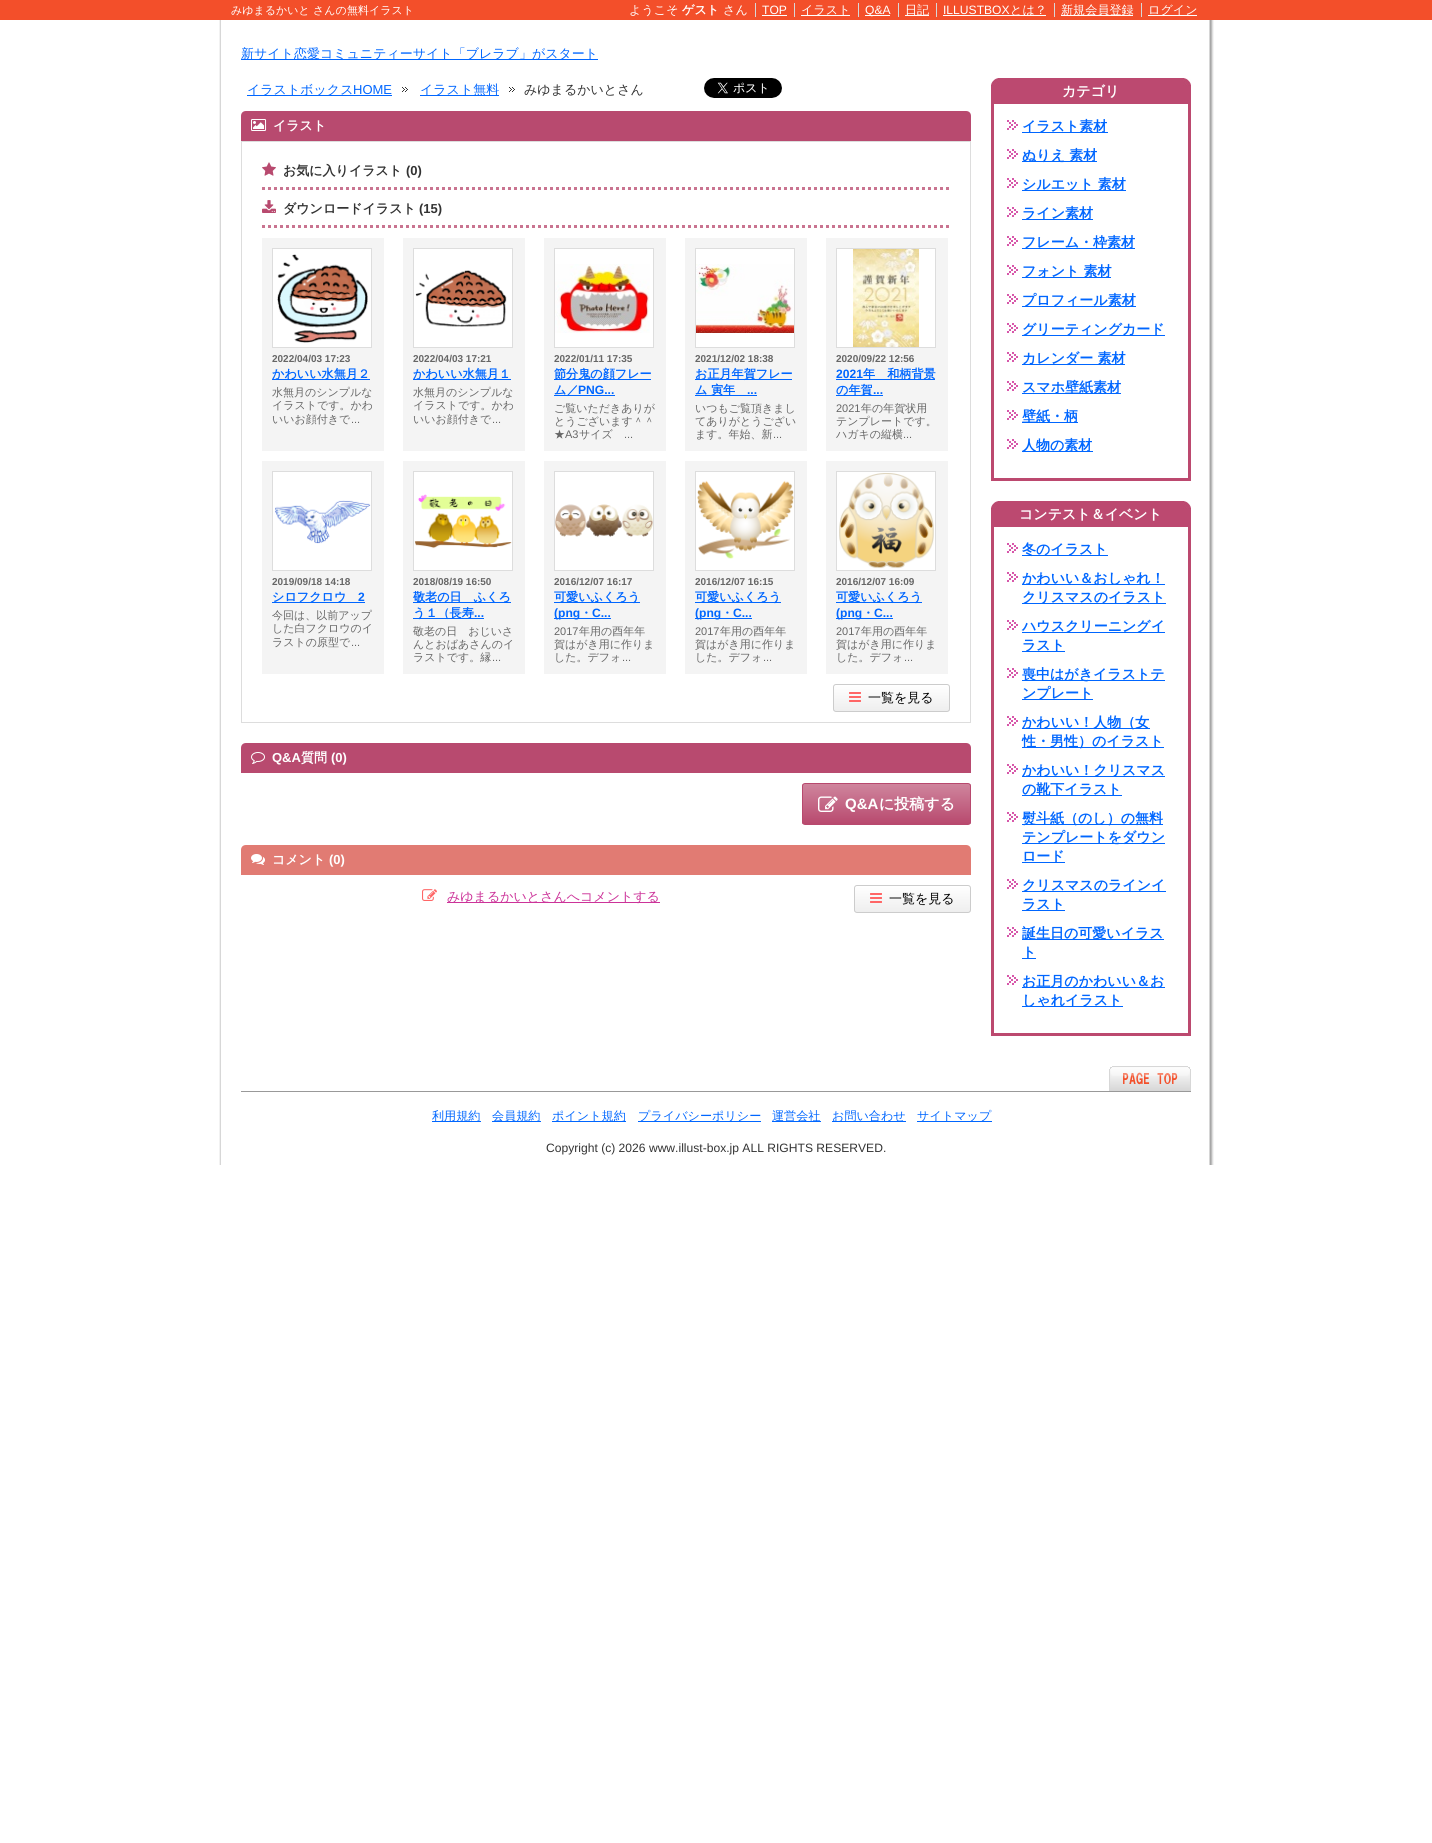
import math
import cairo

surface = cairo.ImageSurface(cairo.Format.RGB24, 1432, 1843)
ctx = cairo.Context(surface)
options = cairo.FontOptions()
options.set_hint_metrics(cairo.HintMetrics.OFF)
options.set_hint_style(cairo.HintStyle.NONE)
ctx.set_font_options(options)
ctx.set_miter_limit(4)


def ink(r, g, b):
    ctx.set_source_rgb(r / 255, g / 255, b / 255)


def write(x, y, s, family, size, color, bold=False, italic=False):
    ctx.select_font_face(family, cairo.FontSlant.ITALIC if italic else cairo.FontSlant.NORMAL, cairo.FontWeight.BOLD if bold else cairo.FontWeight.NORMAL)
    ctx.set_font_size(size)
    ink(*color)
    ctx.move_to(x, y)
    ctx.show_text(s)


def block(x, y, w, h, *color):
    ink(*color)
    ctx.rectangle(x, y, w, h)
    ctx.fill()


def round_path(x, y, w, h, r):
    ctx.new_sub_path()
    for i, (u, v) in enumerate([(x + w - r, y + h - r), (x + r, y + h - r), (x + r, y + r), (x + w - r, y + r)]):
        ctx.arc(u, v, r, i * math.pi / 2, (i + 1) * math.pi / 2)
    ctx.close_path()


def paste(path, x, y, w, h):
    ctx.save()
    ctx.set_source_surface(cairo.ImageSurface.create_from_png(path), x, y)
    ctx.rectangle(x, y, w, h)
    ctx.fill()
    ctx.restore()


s1 = dict(family="WenQuanYi Zen Hei Medium", size=11, color=(255, 255, 255))
s2 = dict(family="WenQuanYi Zen Hei Medium", size=12.1, color=(255, 255, 255))
s3 = dict(family="WenQuanYi Zen Hei", size=12.1, color=(255, 255, 255), bold=True)
s4 = dict(family="Liberation Sans", size=12.1, color=(255, 255, 255))
s5 = dict(family="WenQuanYi Zen Hei Medium", size=13, color=(0, 102, 255))
s6 = dict(family="Liberation Sans", size=13, color=(0, 102, 255))
s7 = dict(family="WenQuanYi Zen Hei Medium", size=13, color=(51, 51, 51))
s8 = dict(family="WenQuanYi Zen Hei", size=13, color=(255, 255, 255), bold=True)
s9 = dict(family="WenQuanYi Zen Hei", size=13, color=(51, 51, 51), bold=True)
s10 = dict(family="Liberation Sans", size=13, color=(51, 51, 51), bold=True)
s11 = dict(family="Liberation Sans", size=10, color=(102, 102, 102), bold=True)
s12 = dict(family="WenQuanYi Zen Hei", size=12.1, color=(0, 102, 255), bold=True)
s13 = dict(family="WenQuanYi Zen Hei Medium", size=11, color=(102, 102, 102))
s14 = dict(family="Liberation Sans", size=11, color=(102, 102, 102))
s15 = dict(family="Liberation Sans", size=12.1, color=(0, 102, 255), bold=True)
s16 = dict(family="WenQuanYi Zen Hei Medium", size=13, color=(0, 0, 0))
s17 = dict(family="Liberation Sans", size=13, color=(255, 255, 255), bold=True)
s18 = dict(family="Liberation Sans", size=15, color=(255, 255, 255), bold=True)
s19 = dict(family="WenQuanYi Zen Hei", size=15, color=(255, 255, 255), bold=True)
s20 = dict(family="WenQuanYi Zen Hei Medium", size=13, color=(204, 51, 153))
s21 = dict(family="WenQuanYi Zen Hei", size=14, color=(255, 255, 255), bold=True)
s22 = dict(family="WenQuanYi Zen Hei", size=14, color=(0, 102, 255), bold=True)
s23 = dict(family="WenQuanYi Zen Hei Medium", size=12.1, color=(0, 102, 255))
s24 = dict(family="Liberation Sans", size=12.1, color=(51, 51, 51))

ink(255, 255, 255)
ctx.paint()
block(0, 0, 1432, 20, 243, 79, 42)
write(231, 14, "みゆまるかいと さんの無料イラスト", **s1)
write(629, 14, "ようこそ", **s2)
write(682, 14, "ゲスト", **s3)
write(723, 14, "さん", **s2)
write(762, 14, "TOP", **s4)
block(755, 3, 1, 14, 215, 215, 215)
block(762, 15, 25, 1, 255, 255, 255)
block(801, 15, 49, 1, 255, 255, 255)
write(801, 14, "イラスト", **s2)
block(794, 3, 1, 14, 215, 215, 215)
block(865, 15, 25, 1, 255, 255, 255)
write(865, 14, "Q&A", **s4)
block(858, 3, 1, 14, 215, 215, 215)
block(905, 15, 24, 1, 255, 255, 255)
write(905, 14, "日記", **s2)
block(898, 3, 1, 14, 215, 215, 215)
write(943, 14, "ILLUSTBOX", **s4)
block(936, 3, 1, 14, 215, 215, 215)
block(943, 15, 103, 1, 255, 255, 255)
write(1010, 14, "とは？", **s2)
block(1061, 15, 72, 1, 255, 255, 255)
write(1061, 14, "新規会員登録", **s2)
block(1054, 3, 1, 14, 215, 215, 215)
block(1148, 15, 49, 1, 255, 255, 255)
write(1148, 14, "ログイン", **s2)
block(1141, 3, 1, 14, 215, 215, 215)
paste("pic1.png", 219, 20, 995, 1145)
block(241, 59, 357, 1, 0, 102, 255)
write(241, 58, "新サイト恋愛コミュニティーサイト「ブレラブ」がスタート", **s5)
block(247, 95, 145, 1, 0, 102, 255)
write(247, 94, "イラストボックス", **s5)
write(353, 94, "HOME", **s6)
paste("pic2.png", 402, 87, 6, 5)
block(420, 95, 79, 1, 0, 102, 255)
write(420, 94, "イラスト無料", **s5)
paste("pic2.png", 509, 87, 6, 5)
write(524, 94, "みゆまるかいとさん", **s7)
paste("pic3.png", 704, 78, 78, 20)
ink(184, 74, 111)
ctx.new_path()
ctx.move_to(246, 111)
ctx.line_to(966, 111)
ctx.curve_to(969, 111, 971, 113, 971, 116)
ctx.line_to(971, 141)
ctx.line_to(241, 141)
ctx.line_to(241, 116)
ctx.curve_to(241, 113, 243, 111, 246, 111)
ctx.close_path()
ctx.fill()
paste("pic4.png", 251, 119, 16, 12)
write(273, 130, "イラスト", **s8)
ctx.rectangle(241.5, 141.5, 729, 581)
ink(221, 221, 221)
ctx.set_line_width(1)
ctx.stroke()
ctx.new_path()
ctx.move_to(262, 188.5)
ctx.line_to(950, 188.5)
ink(201, 116, 144)
ctx.set_line_width(3)
ctx.set_dash([3, 3])
ctx.stroke()
paste("pic5.png", 262, 162, 14, 14)
write(283, 175, "お気に入りイラスト", **s9)
write(406, 175, "(0)", **s10)
ctx.new_path()
ctx.move_to(262, 226.5)
ctx.line_to(950, 226.5)
ink(201, 116, 144)
ctx.stroke()
paste("pic6.png", 262, 200, 14, 13)
write(283, 213, "ダウンロードイラスト", **s9)
write(419, 213, "(15)", **s10)
block(262, 238, 122, 213, 244, 244, 244)
ink(255, 255, 255)
ctx.rectangle(272.5, 248.5, 99, 99)
ctx.fill_preserve()
ink(221, 221, 221)
ctx.set_line_width(1)
ctx.set_dash([])
ctx.stroke()
paste("pic7.png", 277, 254, 91, 89)
write(272, 362, "2022/04/03 17:23", **s11)
block(272, 379, 98, 1, 0, 102, 255)
write(272, 378, "かわいい水無月２", **s12)
write(272, 396, "水無月のシンプルな", **s13)
write(272, 409, "イラストです。かわ", **s13)
write(272, 423, "いいお顔付きで", **s13)
write(351, 423, "...", **s14)
block(403, 238, 122, 213, 244, 244, 244)
ink(255, 255, 255)
ctx.rectangle(413.5, 248.5, 99, 99)
ctx.fill_preserve()
ink(221, 221, 221)
ctx.stroke()
paste("pic8.png", 415, 270, 92, 57)
write(413, 362, "2022/04/03 17:21", **s11)
block(413, 379, 98, 1, 0, 102, 255)
write(413, 378, "かわいい水無月１", **s12)
write(413, 396, "水無月のシンプルな", **s13)
write(413, 409, "イラストです。かわ", **s13)
write(413, 423, "いいお顔付きで", **s13)
write(492, 423, "...", **s14)
block(544, 238, 122, 213, 244, 244, 244)
ink(255, 255, 255)
ctx.rectangle(554.5, 248.5, 99, 99)
ctx.fill_preserve()
ink(221, 221, 221)
ctx.stroke()
paste("pic9.png", 555, 264, 95, 69)
write(554, 362, "2022/01/11 17:35", **s11)
block(554, 379, 97, 1, 0, 102, 255)
write(554, 378, "節分鬼の顔フレー", **s12)
block(554, 395, 61, 1, 0, 102, 255)
write(554, 394, "ム／", **s12)
write(578, 394, "PNG...", **s15)
write(554, 412, "ご覧いただきありが", **s13)
write(554, 425, "とうございます＾＾", **s13)
write(554, 438, "★", **s13)
write(565, 438, "A3", **s14)
write(579, 438, "サイズ", **s13)
write(624, 438, "...", **s14)
block(685, 238, 122, 213, 244, 244, 244)
ink(255, 255, 255)
ctx.rectangle(695.5, 248.5, 99, 99)
ctx.fill_preserve()
ink(221, 221, 221)
ctx.stroke()
paste("pic10.png", 696, 264, 98, 69)
write(695, 362, "2021/12/02 18:38", **s11)
block(695, 379, 97, 1, 0, 102, 255)
write(695, 378, "お正月年賀フレー", **s12)
block(695, 395, 62, 1, 0, 102, 255)
write(695, 394, "ム 寅年", **s12)
write(747, 394, "...", **s15)
write(695, 412, "いつもご覧頂きまし", **s13)
write(695, 425, "てありがとうござい", **s13)
write(695, 438, "ます。年始、新", **s13)
write(773, 438, "...", **s14)
block(826, 238, 122, 213, 244, 244, 244)
ink(255, 255, 255)
ctx.rectangle(836.5, 248.5, 99, 99)
ctx.fill_preserve()
ink(221, 221, 221)
ctx.stroke()
paste("pic11.png", 853, 249, 66, 98)
write(836, 362, "2020/09/22 12:56", **s11)
write(836, 378, "2021", **s15)
block(836, 379, 99, 1, 0, 102, 255)
write(863, 378, "年　和柄背景", **s12)
block(836, 395, 47, 1, 0, 102, 255)
write(836, 394, "の年賀", **s12)
write(873, 394, "...", **s15)
write(836, 412, "2021", **s14)
write(861, 412, "年の年賀状用", **s13)
write(836, 425, "テンプレートです。", **s13)
write(836, 438, "ハガキの縦横", **s13)
write(903, 438, "...", **s14)
block(262, 461, 122, 213, 244, 244, 244)
ink(255, 255, 255)
ctx.rectangle(272.5, 471.5, 99, 99)
ctx.fill_preserve()
ink(221, 221, 221)
ctx.stroke()
paste("pic12.png", 275, 500, 96, 44)
write(272, 585, "2019/09/18 14:18", **s11)
block(272, 602, 93, 1, 0, 102, 255)
write(272, 601, "シロフクロウ", **s12)
write(358, 601, "2", **s15)
write(272, 619, "今回は、以前アップ", **s13)
write(272, 632, "した白フクロウのイ", **s13)
write(272, 646, "ラストの原型で", **s13)
write(351, 646, "...", **s14)
block(403, 461, 122, 213, 244, 244, 244)
ink(255, 255, 255)
ctx.rectangle(413.5, 471.5, 99, 99)
ctx.fill_preserve()
ink(221, 221, 221)
ctx.stroke()
paste("pic13.png", 414, 494, 98, 55)
write(413, 585, "2018/08/19 16:50", **s11)
block(413, 602, 98, 1, 0, 102, 255)
write(413, 601, "敬老の日　ふくろ", **s12)
block(413, 618, 71, 1, 0, 102, 255)
write(413, 617, "う１（長寿", **s12)
write(474, 617, "...", **s15)
write(413, 635, "敬老の日　おじいさ", **s13)
write(413, 648, "んとおばあさんのイ", **s13)
write(413, 661, "ラストです。縁", **s13)
write(492, 661, "...", **s14)
block(544, 461, 122, 213, 244, 244, 244)
ink(255, 255, 255)
ctx.rectangle(554.5, 471.5, 99, 99)
ctx.fill_preserve()
ink(221, 221, 221)
ctx.stroke()
paste("pic14.png", 555, 504, 98, 33)
write(554, 585, "2016/12/07 16:17", **s11)
block(554, 602, 86, 1, 0, 102, 255)
write(554, 601, "可愛いふくろう", **s12)
block(554, 618, 57, 1, 0, 102, 255)
write(554, 617, "(png", **s15)
write(580, 617, "・", **s12)
write(592, 617, "C...", **s15)
write(554, 635, "2017", **s14)
write(579, 635, "年用の酉年年", **s13)
write(554, 648, "賀はがき用に作りま", **s13)
write(554, 661, "した。デフォ", **s13)
write(622, 661, "...", **s14)
block(685, 461, 122, 213, 244, 244, 244)
ink(255, 255, 255)
ctx.rectangle(695.5, 471.5, 99, 99)
ctx.fill_preserve()
ink(221, 221, 221)
ctx.stroke()
paste("pic15.png", 697, 480, 97, 79)
write(695, 585, "2016/12/07 16:15", **s11)
block(695, 602, 86, 1, 0, 102, 255)
write(695, 601, "可愛いふくろう", **s12)
block(695, 618, 57, 1, 0, 102, 255)
write(695, 617, "(png", **s15)
write(721, 617, "・", **s12)
write(733, 617, "C...", **s15)
write(695, 635, "2017", **s14)
write(720, 635, "年用の酉年年", **s13)
write(695, 648, "賀はがき用に作りま", **s13)
write(695, 661, "した。デフォ", **s13)
write(763, 661, "...", **s14)
block(826, 461, 122, 213, 244, 244, 244)
ink(255, 255, 255)
ctx.rectangle(836.5, 471.5, 99, 99)
ctx.fill_preserve()
ink(221, 221, 221)
ctx.stroke()
paste("pic16.png", 839, 473, 95, 96)
write(836, 585, "2016/12/07 16:09", **s11)
block(836, 602, 86, 1, 0, 102, 255)
write(836, 601, "可愛いふくろう", **s12)
block(836, 618, 57, 1, 0, 102, 255)
write(836, 617, "(png", **s15)
write(862, 617, "・", **s12)
write(874, 617, "C...", **s15)
write(836, 635, "2017", **s14)
write(861, 635, "年用の酉年年", **s13)
write(836, 648, "賀はがき用に作りま", **s13)
write(836, 661, "した。デフォ", **s13)
write(904, 661, "...", **s14)
ctx.save()
round_path(833, 684, 117, 28, 3)
ctx.clip()
gradient = cairo.LinearGradient(892, 685, 892, 711)
gradient.add_color_stop_rgba(0, 1, 1, 1, 1)
gradient.add_color_stop_rgba(1, 0.933, 0.933, 0.933, 1)
ctx.set_source(gradient)
ctx.rectangle(833, 685, 117, 26)
ctx.fill()
ctx.restore()
round_path(833.5, 684.5, 116, 27, 2.5)
ink(204, 204, 204)
ctx.stroke()
paste("pic17.png", 849, 692, 12, 10)
write(868, 702, "一覧を見る", **s16)
ink(184, 74, 111)
ctx.new_path()
ctx.move_to(246, 743)
ctx.line_to(966, 743)
ctx.curve_to(969, 743, 971, 745, 971, 748)
ctx.line_to(971, 773)
ctx.line_to(241, 773)
ctx.line_to(241, 748)
ctx.curve_to(241, 745, 243, 743, 246, 743)
ctx.close_path()
ctx.fill()
paste("pic18.png", 251, 752, 14, 12)
write(272, 762, "Q&A", **s17)
write(301, 762, "質問", **s8)
write(331, 762, "(0)", **s17)
ctx.save()
round_path(802, 783, 169, 42, 3)
ctx.clip()
gradient = cairo.LinearGradient(887, 784, 887, 824)
gradient.add_color_stop_rgba(0, 0.812, 0.522, 0.616, 1)
gradient.add_color_stop_rgba(1, 0.722, 0.286, 0.431, 1)
ctx.set_source(gradient)
ctx.rectangle(802, 784, 169, 40)
ctx.fill()
ctx.restore()
round_path(802.5, 783.5, 168, 41, 2.5)
ink(184, 73, 110)
ctx.stroke()
paste("pic19.png", 818, 796, 20, 16)
write(845, 809, "Q&A", **s18)
write(879, 809, "に投稿する", **s19)
ink(225, 123, 115)
ctx.new_path()
ctx.move_to(246, 845)
ctx.line_to(966, 845)
ctx.curve_to(969, 845, 971, 847, 971, 850)
ctx.line_to(971, 875)
ctx.line_to(241, 875)
ctx.line_to(241, 850)
ctx.curve_to(241, 847, 243, 845, 246, 845)
ctx.close_path()
ctx.fill()
paste("pic20.png", 251, 854, 14, 11)
write(272, 864, "コメント", **s8)
write(329, 864, "(0)", **s17)
paste("pic21.png", 422, 889, 15, 12)
block(447, 902, 213, 1, 204, 51, 153)
write(447, 901, "みゆまるかいとさんへコメントする", **s20)
ctx.save()
round_path(854, 885, 117, 28, 3)
ctx.clip()
gradient = cairo.LinearGradient(913, 886, 913, 912)
gradient.add_color_stop_rgba(0, 1, 1, 1, 1)
gradient.add_color_stop_rgba(1, 0.933, 0.933, 0.933, 1)
ctx.set_source(gradient)
ctx.rectangle(854, 886, 117, 26)
ctx.fill()
ctx.restore()
round_path(854.5, 885.5, 116, 27, 2.5)
ink(204, 204, 204)
ctx.stroke()
paste("pic17.png", 870, 893, 12, 10)
write(889, 903, "一覧を見る", **s16)
paste("pic22.png", 991, 78, 200, 26)
write(1062, 96, "カテゴリ", **s21)
block(1188, 104, 3, 377, 188, 73, 111)
block(991, 478, 200, 3, 188, 73, 111)
block(991, 104, 3, 377, 188, 73, 111)
paste("pic23.png", 1007, 120, 11, 10)
block(1022, 132, 86, 1, 0, 102, 255)
write(1022, 131, "イラスト素材", **s22)
paste("pic23.png", 1007, 149, 11, 10)
block(1022, 161, 75, 1, 0, 102, 255)
write(1022, 160, "ぬりえ 素材", **s22)
paste("pic23.png", 1007, 178, 11, 10)
block(1022, 190, 104, 1, 0, 102, 255)
write(1022, 189, "シルエット 素材", **s22)
paste("pic23.png", 1007, 207, 11, 10)
block(1022, 219, 71, 1, 0, 102, 255)
write(1022, 218, "ライン素材", **s22)
paste("pic23.png", 1007, 236, 11, 10)
block(1022, 248, 113, 1, 0, 102, 255)
write(1022, 247, "フレーム・枠素材", **s22)
paste("pic23.png", 1007, 265, 11, 10)
block(1022, 277, 89, 1, 0, 102, 255)
write(1022, 276, "フォント 素材", **s22)
paste("pic23.png", 1007, 294, 11, 10)
block(1022, 306, 114, 1, 0, 102, 255)
write(1022, 305, "プロフィール素材", **s22)
paste("pic23.png", 1007, 323, 11, 10)
block(1022, 335, 143, 1, 0, 102, 255)
write(1022, 334, "グリーティングカード", **s22)
paste("pic23.png", 1007, 352, 11, 10)
block(1022, 364, 103, 1, 0, 102, 255)
write(1022, 363, "カレンダー 素材", **s22)
paste("pic23.png", 1007, 381, 11, 10)
block(1022, 393, 99, 1, 0, 102, 255)
write(1022, 392, "スマホ壁紙素材", **s22)
paste("pic23.png", 1007, 410, 11, 10)
block(1022, 422, 56, 1, 0, 102, 255)
write(1022, 421, "壁紙・柄", **s22)
paste("pic23.png", 1007, 439, 11, 10)
block(1022, 451, 71, 1, 0, 102, 255)
write(1022, 450, "人物の素材", **s22)
paste("pic22.png", 991, 501, 200, 26)
write(1019, 519, "コンテスト＆イベント", **s21)
block(1188, 527, 3, 509, 188, 73, 111)
block(991, 1033, 200, 3, 188, 73, 111)
block(991, 527, 3, 509, 188, 73, 111)
paste("pic23.png", 1007, 543, 11, 10)
block(1022, 555, 86, 1, 0, 102, 255)
write(1022, 554, "冬のイラスト", **s22)
paste("pic23.png", 1007, 572, 11, 10)
block(1022, 584, 143, 1, 0, 102, 255)
write(1022, 583, "かわいい＆おしゃれ！", **s22)
block(1022, 603, 144, 1, 0, 102, 255)
write(1022, 602, "クリスマスのイラスト", **s22)
paste("pic23.png", 1007, 620, 11, 10)
block(1022, 632, 143, 1, 0, 102, 255)
write(1022, 631, "ハウスクリーニングイ", **s22)
block(1022, 651, 43, 1, 0, 102, 255)
write(1022, 650, "ラスト", **s22)
paste("pic23.png", 1007, 668, 11, 10)
block(1022, 680, 143, 1, 0, 102, 255)
write(1022, 679, "喪中はがきイラストテ", **s22)
block(1022, 699, 71, 1, 0, 102, 255)
write(1022, 698, "ンプレート", **s22)
paste("pic23.png", 1007, 716, 11, 10)
block(1022, 728, 128, 1, 0, 102, 255)
write(1022, 727, "かわいい！人物（女", **s22)
block(1022, 747, 142, 1, 0, 102, 255)
write(1022, 746, "性・男性）のイラスト", **s22)
paste("pic23.png", 1007, 764, 11, 10)
block(1022, 776, 143, 1, 0, 102, 255)
write(1022, 775, "かわいい！クリスマス", **s22)
block(1022, 795, 100, 1, 0, 102, 255)
write(1022, 794, "の靴下イラスト", **s22)
paste("pic23.png", 1007, 812, 11, 10)
block(1022, 824, 141, 1, 0, 102, 255)
write(1022, 823, "熨斗紙（のし）の無料", **s22)
block(1022, 843, 143, 1, 0, 102, 255)
write(1022, 842, "テンプレートをダウン", **s22)
block(1022, 862, 43, 1, 0, 102, 255)
write(1022, 861, "ロード", **s22)
paste("pic23.png", 1007, 879, 11, 10)
block(1022, 891, 144, 1, 0, 102, 255)
write(1022, 890, "クリスマスのラインイ", **s22)
block(1022, 910, 43, 1, 0, 102, 255)
write(1022, 909, "ラスト", **s22)
paste("pic23.png", 1007, 927, 11, 10)
block(1022, 939, 142, 1, 0, 102, 255)
write(1022, 938, "誕生日の可愛いイラス", **s22)
block(1022, 958, 14, 1, 0, 102, 255)
write(1022, 957, "ト", **s22)
paste("pic23.png", 1007, 975, 11, 10)
block(1022, 987, 143, 1, 0, 102, 255)
write(1022, 986, "お正月のかわいい＆お", **s22)
block(1022, 1006, 101, 1, 0, 102, 255)
write(1022, 1005, "しゃれイラスト", **s22)
block(241, 1091, 950, 1, 153, 153, 153)
paste("pic24.png", 1109, 1066, 82, 25)
block(432, 1121, 49, 1, 0, 102, 255)
write(432, 1120, "利用規約", **s23)
block(492, 1121, 49, 1, 0, 102, 255)
write(492, 1120, "会員規約", **s23)
block(552, 1121, 74, 1, 0, 102, 255)
write(552, 1120, "ポイント規約", **s23)
block(638, 1121, 123, 1, 0, 102, 255)
write(638, 1120, "プライバシーポリシー", **s23)
block(772, 1121, 49, 1, 0, 102, 255)
write(772, 1120, "運営会社", **s23)
block(832, 1121, 74, 1, 0, 102, 255)
write(832, 1120, "お問い合わせ", **s23)
block(917, 1121, 75, 1, 0, 102, 255)
write(917, 1120, "サイトマップ", **s23)
write(546, 1152, "Copyright (c) 2026 www.illust-box.jp ALL RIGHTS RESERVED.", **s24)
surface.write_to_png("screenshot.png")
